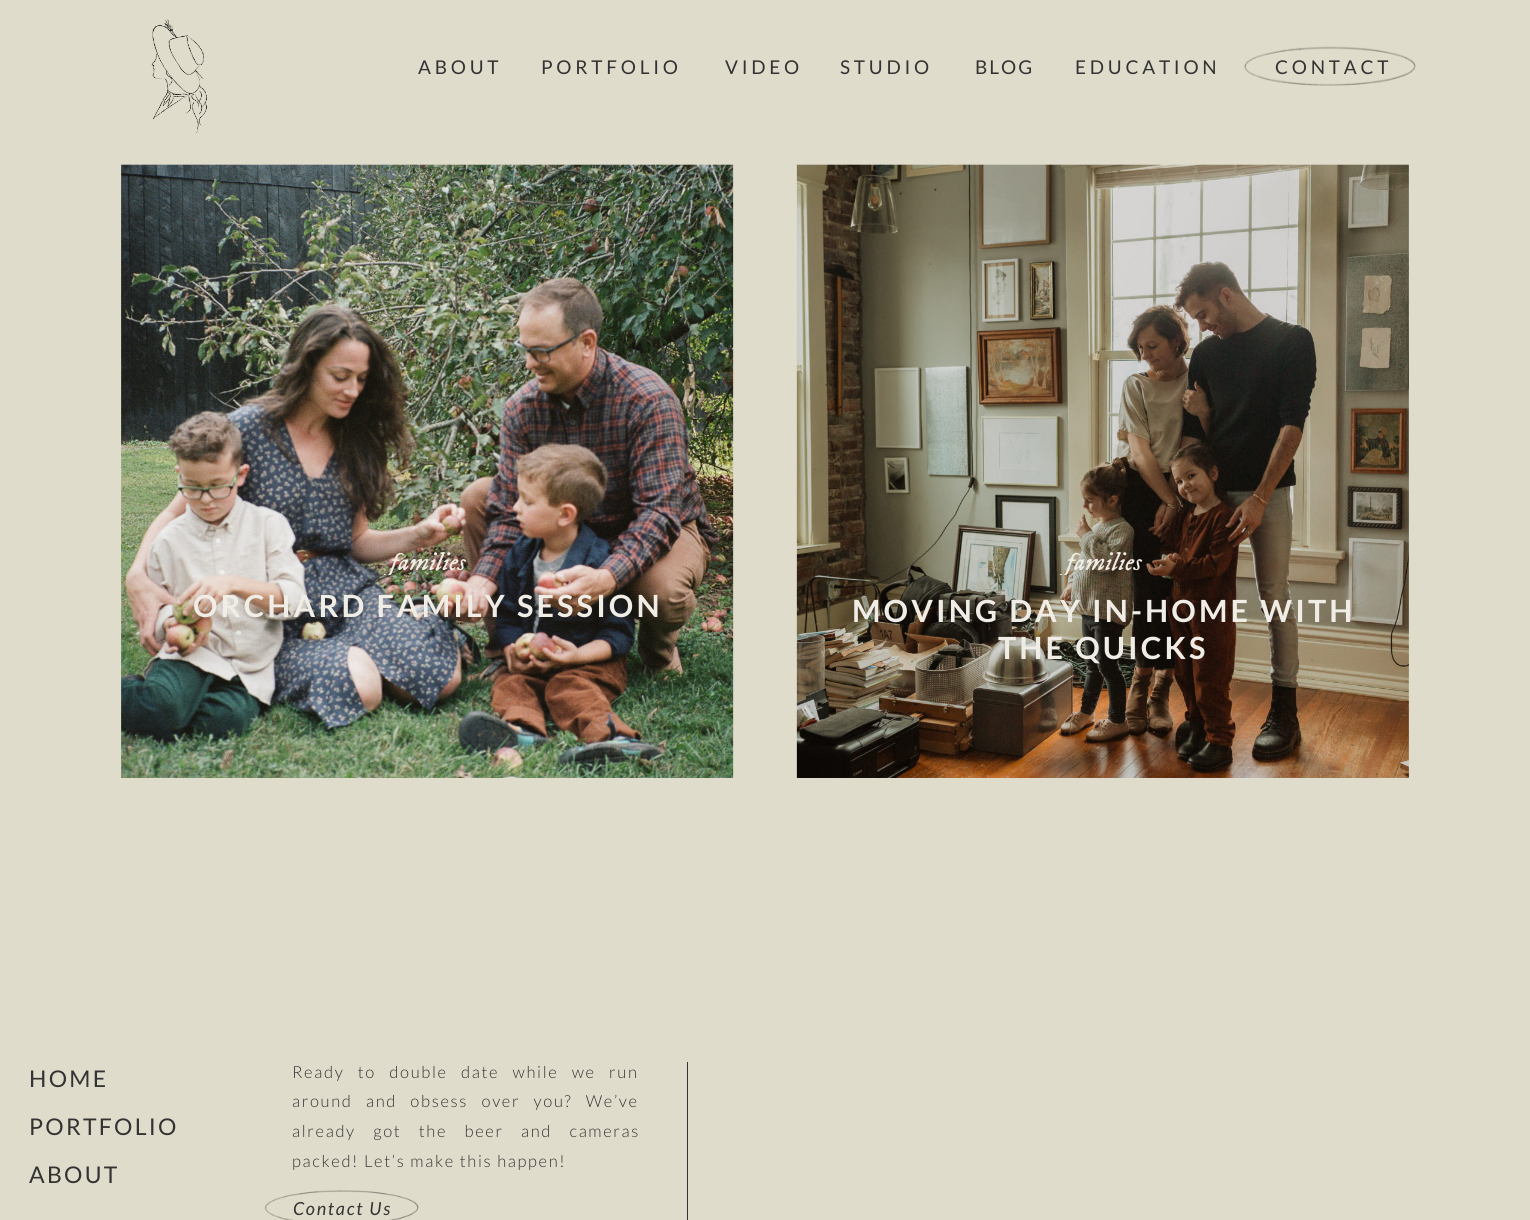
import math
import cairo

surface = cairo.ImageSurface(cairo.Format.RGB24, 1530, 1220)
ctx = cairo.Context(surface)
options = cairo.FontOptions()
options.set_hint_metrics(cairo.HintMetrics.OFF)
options.set_hint_style(cairo.HintStyle.NONE)
ctx.set_font_options(options)
ctx.set_miter_limit(4)


def ink(r, g, b):
    ctx.set_source_rgb(r / 255, g / 255, b / 255)


def write(x, y, s, family, size, color, bold=False, italic=False):
    ctx.select_font_face(family, cairo.FontSlant.ITALIC if italic else cairo.FontSlant.NORMAL, cairo.FontWeight.BOLD if bold else cairo.FontWeight.NORMAL)
    ctx.set_font_size(size)
    ink(*color)
    ctx.move_to(x, y)
    ctx.show_text(s)


def write_spaced(x, y, s, letter, word):
    ctx.move_to(x, y)
    for ch in s:
        ctx.show_text(ch)
        ctx.rel_move_to(letter + word * (ch == ' '), 0)


def block(x, y, w, h, *color):
    ink(*color)
    ctx.rectangle(x, y, w, h)
    ctx.fill()


def paste(path, x, y, w, h):
    ctx.save()
    ctx.set_source_surface(cairo.ImageSurface.create_from_png(path), x, y)
    ctx.rectangle(x, y, w, h)
    ctx.fill()
    ctx.restore()


s1 = dict(family="IM FELL DW Pica", size=25.5, color=(240, 237, 230), italic=True)

ink(223, 220, 203)
ctx.paint()
paste("pic1.png", 151, 19, 56, 115)
ctx.select_font_face("Lato")
ctx.set_font_size(19)
ink(52, 51, 51)
write_spaced(418, 74, "ABOUT", 3.75, 0)
write_spaced(541, 74, "PORTFOLIO", 3.75, 0)
write_spaced(725, 74, "VIDEO", 3.75, 0)
write_spaced(840, 74, "STUDIO", 3.75, 0)
write_spaced(975, 74, "BLOG", 2, 0)
write_spaced(1075, 74, "EDUCATION", 3.75, 0)
write_spaced(1275, 74, "CONTACT", 3.75, 0)
paste("pic2.png", 1244, 46, 172, 40)
paste("pic3.png", 121, 164, 613, 614)
paste("pic4.png", 796, 164, 613, 614)
ctx.save()
ctx.rectangle(330, 542, 195, 33)
ctx.clip()
write(390, 570, "families", **s1)
ctx.restore()
ctx.save()
ctx.rectangle(1007, 542, 195, 33)
ctx.clip()
write(1066, 570, "families", **s1)
ctx.restore()
ctx.select_font_face("Lato", cairo.FontSlant.NORMAL, cairo.FontWeight.BOLD)
ctx.set_font_size(30.6)
ink(240, 237, 230)
write_spaced(193, 617, "ORCHARD FAMILY SESSION", 3.1, 0)
write_spaced(852, 622, "MOVING DAY IN-HOME WITH", 3.1, 0)
write_spaced(998, 659, "THE QUICKS", 3.1, 0)
ctx.select_font_face("Lato")
ctx.set_font_size(23)
ink(52, 51, 51)
write_spaced(29, 1087, "HOME", 2.25, 0)
ctx.select_font_face("Lato Light")
ctx.set_font_size(16.6)
write_spaced(292, 1078, "Ready to double date while we run", 1.65, 8.5)
write_spaced(292, 1107, "around and obsess over you? We’ve", 1.65, 8.5)
write_spaced(292, 1137, "already got the beer and cameras", 1.65, 12.5)
write_spaced(292, 1167, "packed! Let’s make this happen!", 1.65, 0)
block(687, 1062, 1, 158, 52, 51, 51)
ctx.select_font_face("Lato")
ctx.set_font_size(23)
write_spaced(29, 1135, "PORTFOLIO", 2.25, 0)
write_spaced(29, 1183, "ABOUT", 2.25, 0)
ctx.select_font_face("Lato", cairo.FontSlant.ITALIC)
ctx.set_font_size(18)
write_spaced(293, 1215, "Contact Us", 1.75, 0)
paste("pic5.png", 264, 1190, 155, 30)
surface.write_to_png("screenshot.png")
